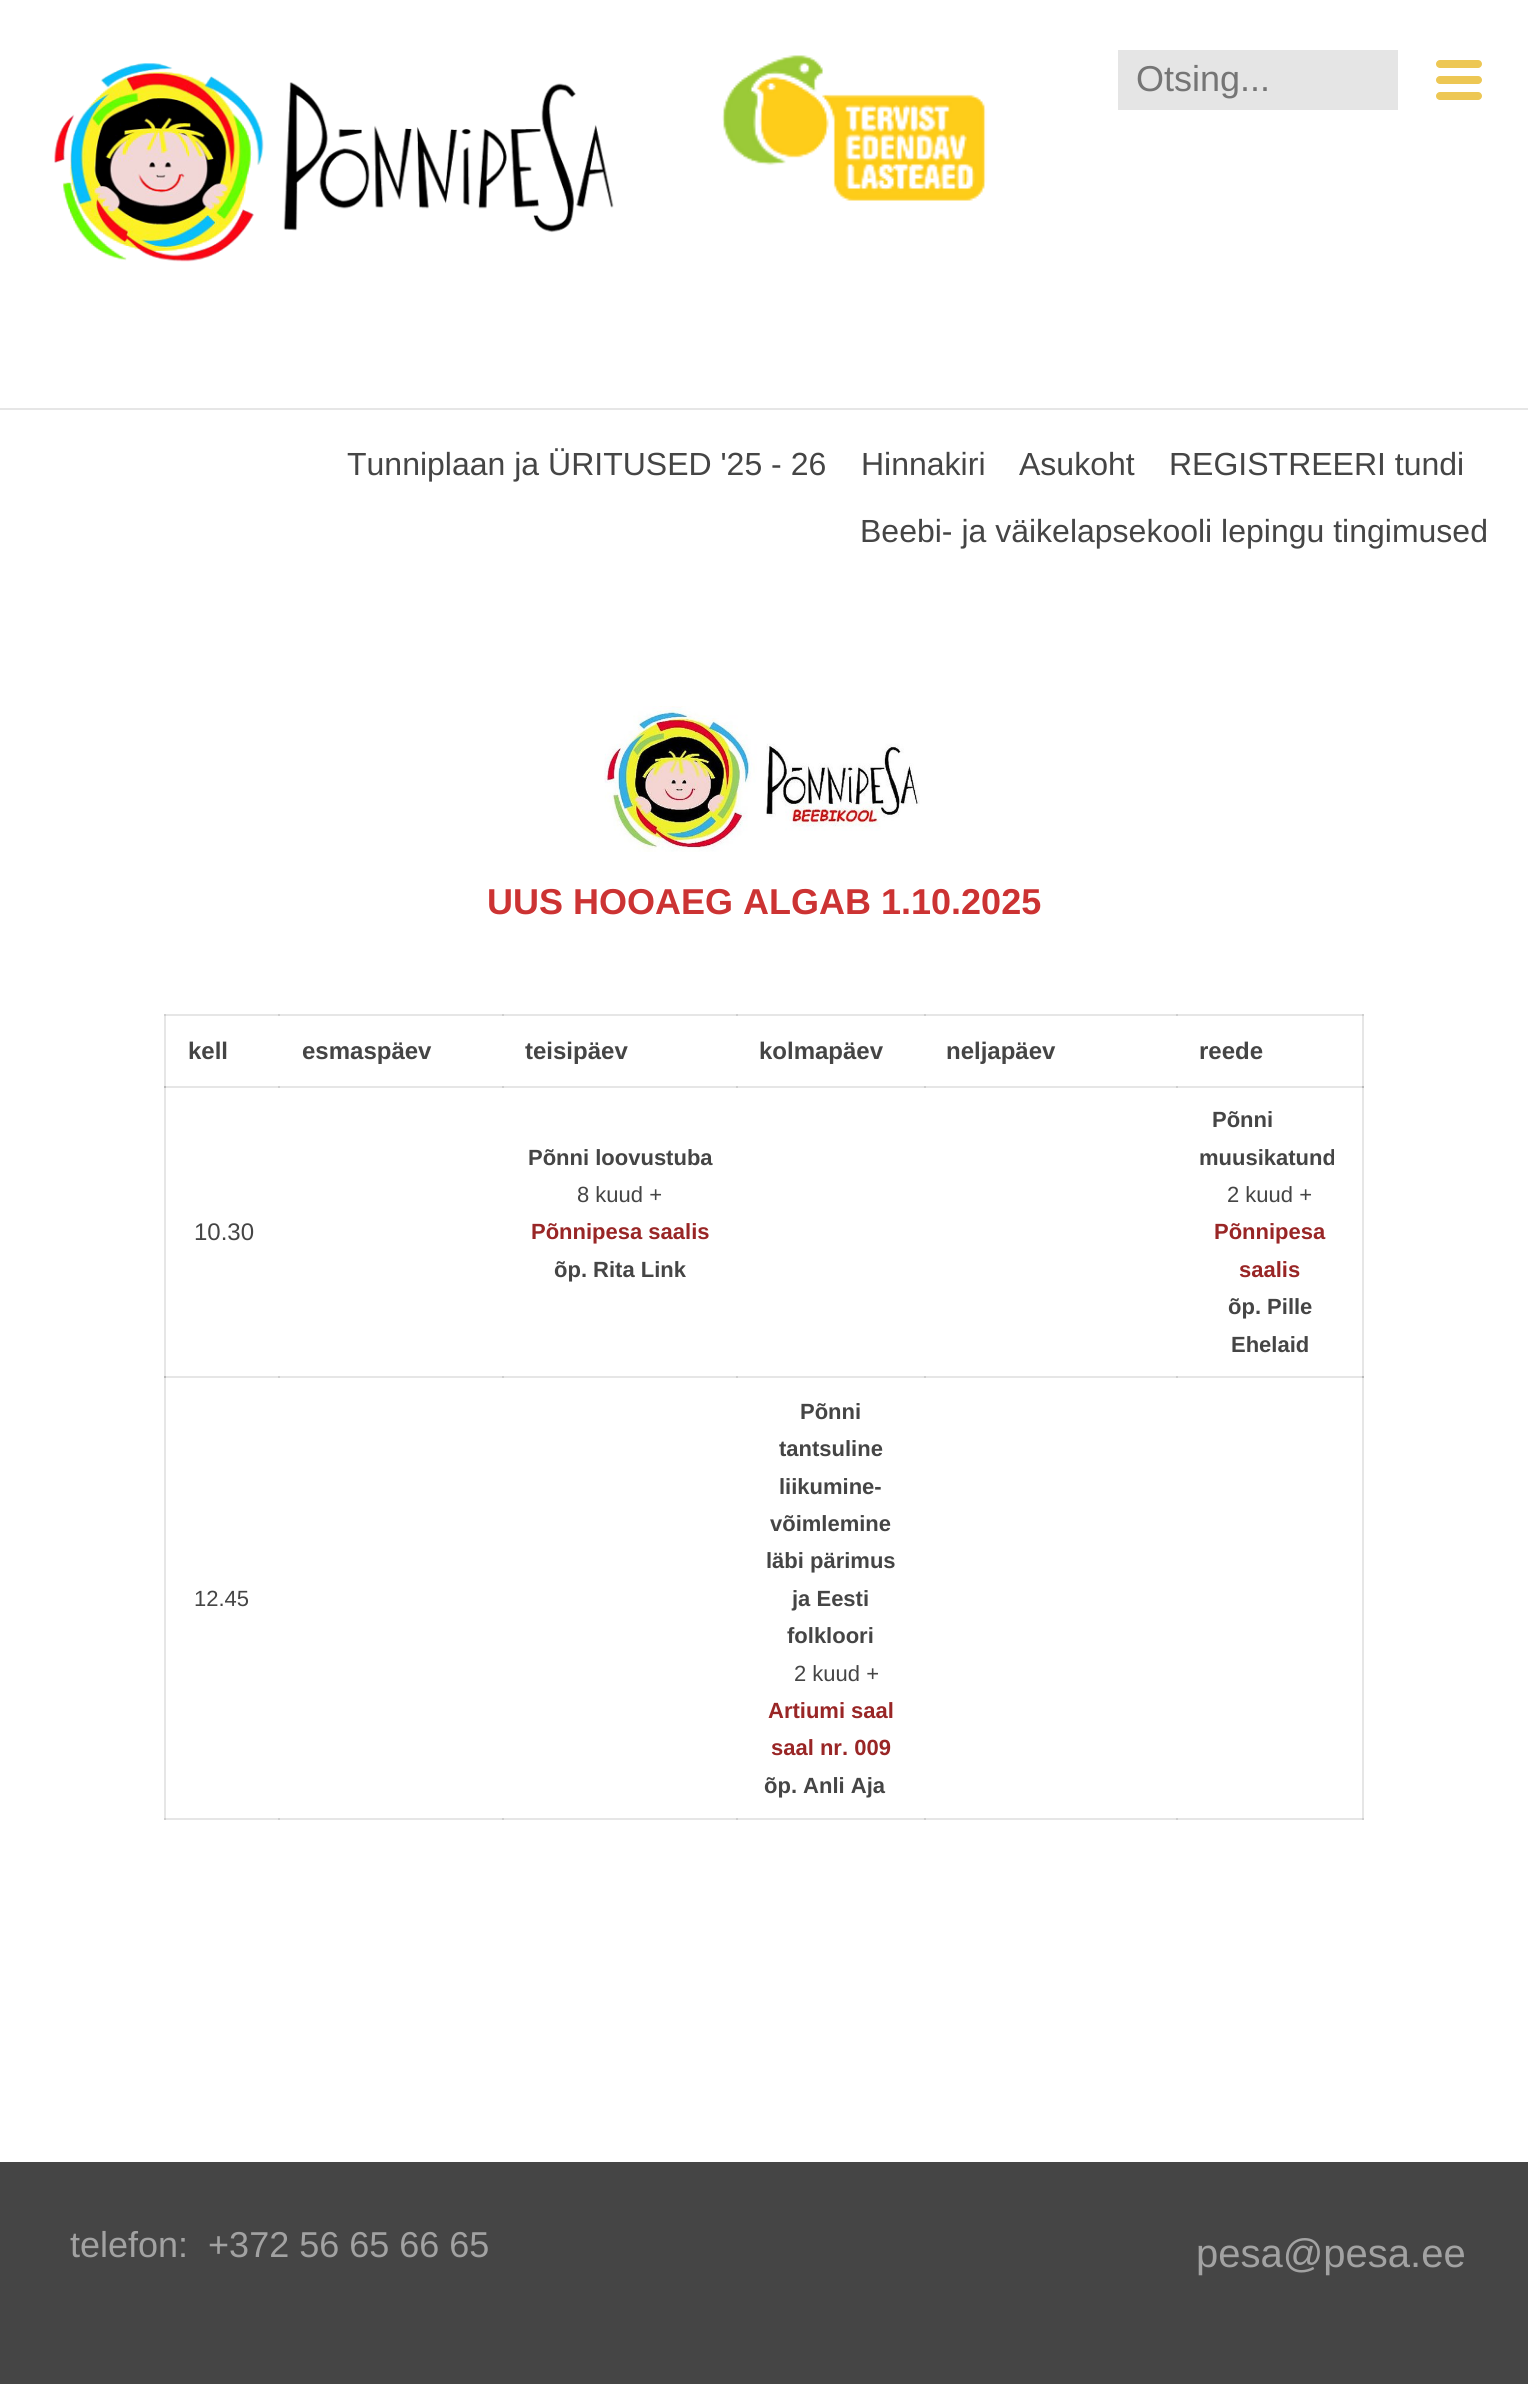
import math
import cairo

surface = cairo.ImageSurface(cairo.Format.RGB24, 1528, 2384)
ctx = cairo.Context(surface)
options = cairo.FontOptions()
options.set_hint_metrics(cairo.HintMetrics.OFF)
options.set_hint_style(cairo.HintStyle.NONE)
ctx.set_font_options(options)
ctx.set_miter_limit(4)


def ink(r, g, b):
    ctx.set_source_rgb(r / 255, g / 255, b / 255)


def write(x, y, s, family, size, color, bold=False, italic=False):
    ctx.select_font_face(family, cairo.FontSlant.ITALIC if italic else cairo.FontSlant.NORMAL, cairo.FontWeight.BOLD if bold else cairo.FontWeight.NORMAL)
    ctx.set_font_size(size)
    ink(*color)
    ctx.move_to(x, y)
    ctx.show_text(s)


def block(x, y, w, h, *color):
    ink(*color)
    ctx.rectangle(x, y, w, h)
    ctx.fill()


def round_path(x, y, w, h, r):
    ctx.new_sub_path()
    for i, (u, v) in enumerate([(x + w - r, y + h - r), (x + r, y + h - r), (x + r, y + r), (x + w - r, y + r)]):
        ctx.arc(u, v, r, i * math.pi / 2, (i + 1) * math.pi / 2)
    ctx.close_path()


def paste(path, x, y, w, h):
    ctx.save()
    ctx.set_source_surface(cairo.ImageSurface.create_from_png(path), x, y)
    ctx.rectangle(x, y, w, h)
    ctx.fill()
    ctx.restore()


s1 = dict(family="Liberation Sans", size=36, color=(117, 117, 117))
s2 = dict(family="Liberation Sans", size=32, color=(69, 69, 69))
s3 = dict(family="Liberation Sans", size=36, color=(204, 51, 51), bold=True)
s4 = dict(family="Liberation Sans", size=24, color=(69, 69, 69), bold=True)
s5 = dict(family="Liberation Sans", size=24, color=(69, 69, 69))
s6 = dict(family="Liberation Sans", size=22, color=(69, 69, 69), bold=True)
s7 = dict(family="Liberation Sans", size=22, color=(69, 69, 69))
s8 = dict(family="Liberation Sans", size=22, color=(153, 38, 38), bold=True)
s9 = dict(family="Liberation Sans", size=36, color=(162, 162, 162))
s10 = dict(family="Liberation Sans", size=40, color=(162, 162, 162))

ink(255, 255, 255)
ctx.paint()
block(164, 1014, 2, 806, 230, 230, 230)
block(164, 1014, 1014, 2, 230, 230, 230)
block(164, 1014, 2, 2, 207, 207, 207)
block(278, 1014, 2, 2, 207, 207, 207)
block(502, 1014, 2, 2, 207, 207, 207)
block(736, 1014, 2, 2, 207, 207, 207)
block(924, 1014, 2, 2, 207, 207, 207)
block(1362, 1014, 2, 364, 230, 230, 230)
block(164, 1086, 1200, 2, 230, 230, 230)
block(164, 1086, 2, 2, 186, 186, 186)
block(278, 1086, 2, 2, 207, 207, 207)
block(502, 1086, 2, 2, 207, 207, 207)
block(736, 1086, 2, 2, 207, 207, 207)
block(924, 1086, 2, 2, 207, 207, 207)
block(164, 1818, 1200, 2, 230, 230, 230)
block(164, 1818, 2, 2, 207, 207, 207)
block(164, 1376, 1014, 2, 230, 230, 230)
block(164, 1376, 2, 2, 186, 186, 186)
block(278, 1818, 2, 2, 207, 207, 207)
block(278, 1376, 2, 2, 207, 207, 207)
block(502, 1818, 2, 2, 207, 207, 207)
block(502, 1376, 2, 2, 207, 207, 207)
block(736, 1818, 2, 2, 207, 207, 207)
block(736, 1376, 2, 2, 207, 207, 207)
block(924, 1818, 2, 2, 207, 207, 207)
block(924, 1376, 2, 2, 207, 207, 207)
block(1176, 1818, 2, 2, 207, 207, 207)
block(1362, 1376, 2, 444, 230, 230, 230)
block(1362, 1818, 2, 2, 207, 207, 207)
block(0, 408, 1528, 2, 230, 230, 230)
paste("pic1.png", 54, 63, 560, 199)
paste("pic2.png", 722, 55, 265, 146)
block(1118, 50, 280, 60, 229, 229, 229)
write(1136, 91, "Otsing...", **s1)
ink(237, 199, 84)
round_path(1436, 60, 46, 8, 4)
ctx.fill()
round_path(1436, 76, 46, 8, 4)
ctx.fill()
round_path(1436, 92, 46, 8, 4)
ctx.fill()
write(347, 475, "Tunniplaan ja ÜRITUSED '25 - 26", **s2)
write(861, 475, "Hinnakiri", **s2)
write(1019, 475, "Asukoht", **s2)
write(1169, 475, "REGISTREERI tundi", **s2)
write(860, 542, "Beebi- ja väikelapsekooli lepingu tingimused", **s2)
paste("pic3.png", 604, 706, 316, 146)
write(487, 914, "UUS HOOAEG ALGAB 1.10.2025", **s3)
write(188, 1059, "kell", **s4)
write(302, 1059, "esmaspäev", **s4)
write(525, 1059, "teisipäev", **s4)
write(759, 1059, "kolmapäev", **s4)
write(946, 1059, "neljapäev", **s4)
block(1176, 1014, 188, 2, 230, 230, 230)
block(1176, 1014, 2, 2, 207, 207, 207)
block(1362, 1014, 2, 2, 207, 207, 207)
write(1199, 1059, "reede", **s4)
write(194, 1240, "10.30", **s5)
write(528, 1165, "Põnni loovustuba", **s6)
write(577, 1202, "8 kuud +", **s7)
write(531, 1239, "Põnnipesa saalis", **s8)
write(554, 1277, "õp. Rita Link", **s6)
block(1176, 1086, 2, 2, 207, 207, 207)
block(1362, 1086, 2, 2, 186, 186, 186)
write(1212, 1127, "Põnni", **s6)
write(1199, 1165, "muusikatund", **s6)
write(1227, 1202, "2 kuud +", **s7)
write(1214, 1239, "Põnnipesa", **s8)
write(1239, 1277, "saalis", **s8)
write(1228, 1314, "õp. Pille", **s6)
write(1231, 1352, "Ehelaid", **s6)
block(1176, 1376, 188, 2, 230, 230, 230)
block(1176, 1376, 2, 2, 207, 207, 207)
block(1362, 1376, 2, 2, 186, 186, 186)
write(194, 1606, "12.45", **s7)
write(800, 1419, "Põnni", **s6)
write(779, 1456, "tantsuline", **s6)
write(779, 1494, "liikumine-", **s6)
write(770, 1531, "võimlemine", **s6)
write(766, 1568, "läbi pärimus", **s6)
write(792, 1606, "ja Eesti", **s6)
write(787, 1643, "folkloori", **s6)
write(794, 1681, "2 kuud +", **s7)
write(768, 1718, "Artiumi saal", **s8)
write(771, 1755, "saal nr. 009", **s8)
write(764, 1793, "õp. Anli Aja", **s6)
block(0, 2162, 1528, 222, 69, 69, 69)
write(70, 2257, "telefon:  +372 56 65 66 65", **s9)
write(1196, 2267, "pesa@pesa.ee", **s10)
surface.write_to_png("screenshot.png")
